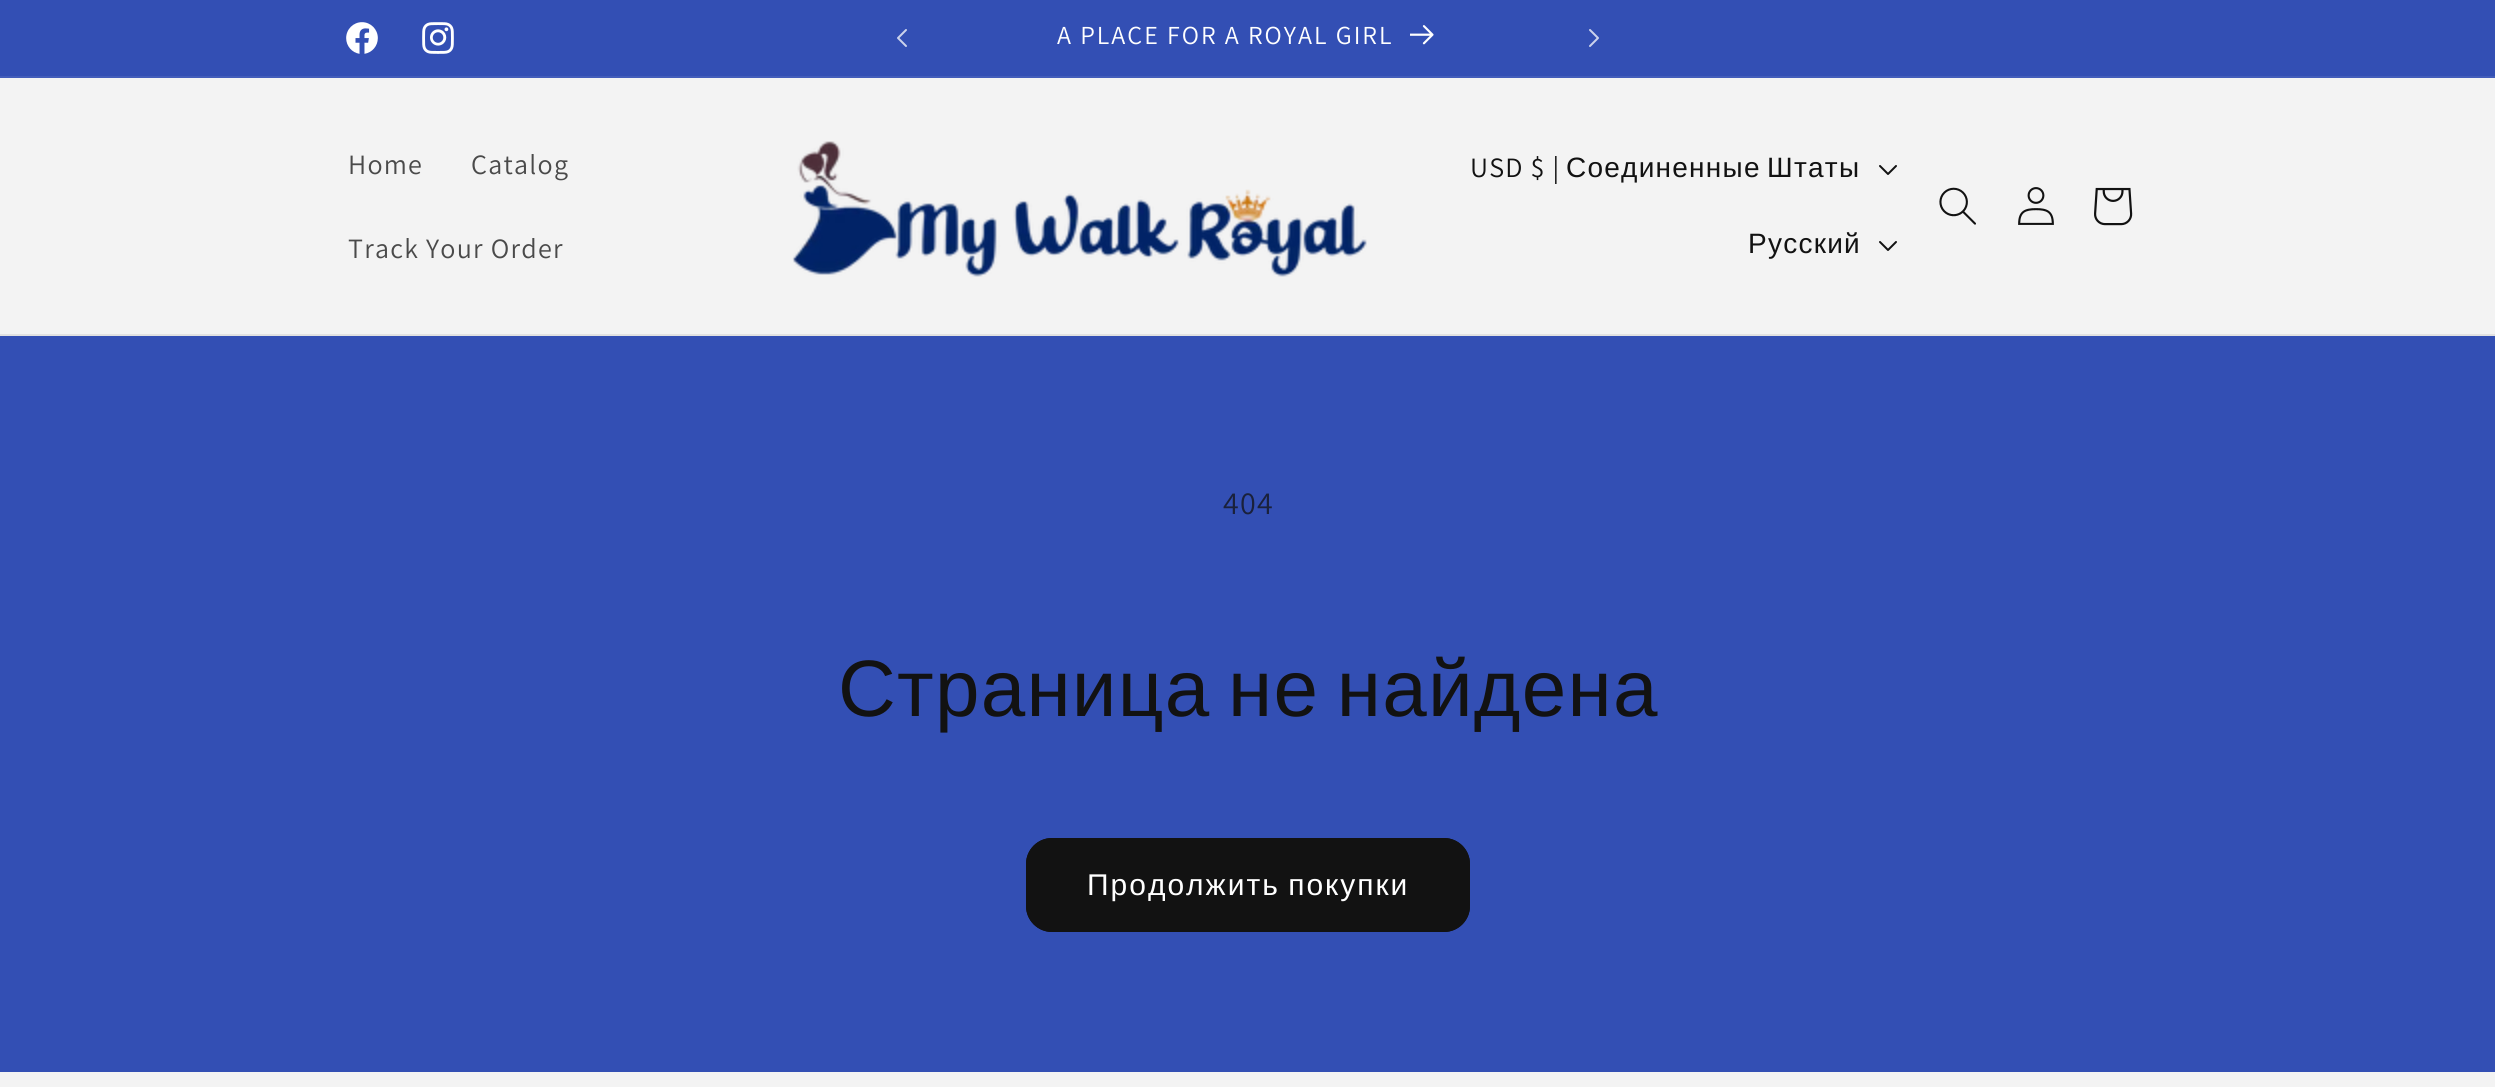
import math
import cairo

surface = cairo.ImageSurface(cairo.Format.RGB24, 2495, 1087)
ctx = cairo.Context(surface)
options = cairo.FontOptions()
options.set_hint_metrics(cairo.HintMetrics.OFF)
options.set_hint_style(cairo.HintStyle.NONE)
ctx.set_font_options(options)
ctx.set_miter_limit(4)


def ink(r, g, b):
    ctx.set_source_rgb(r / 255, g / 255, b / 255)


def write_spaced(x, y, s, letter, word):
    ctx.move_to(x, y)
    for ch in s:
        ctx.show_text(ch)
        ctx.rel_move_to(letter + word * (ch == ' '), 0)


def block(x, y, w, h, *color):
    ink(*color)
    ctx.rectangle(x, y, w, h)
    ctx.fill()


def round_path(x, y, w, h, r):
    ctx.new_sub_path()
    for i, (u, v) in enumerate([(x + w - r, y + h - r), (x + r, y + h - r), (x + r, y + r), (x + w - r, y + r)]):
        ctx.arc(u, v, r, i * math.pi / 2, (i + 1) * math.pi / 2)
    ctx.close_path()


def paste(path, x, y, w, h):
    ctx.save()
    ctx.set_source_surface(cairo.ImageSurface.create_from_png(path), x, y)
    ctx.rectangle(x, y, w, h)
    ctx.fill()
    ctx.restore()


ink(255, 255, 255)
ctx.paint()
gradient = cairo.RadialGradient(0, 0, 0, 0, 0, 1)
gradient.set_matrix(cairo.Matrix(1 / 1765, 0, 0, 1 / 769, -1 * 1248 / 1765, -1 * 544 / 769))
gradient.add_color_stop_rgba(1, 0.2, 0.31, 0.706, 1)
gradient.add_color_stop_rgba(1, 0.471, 0.769, 0.961, 1)
ctx.set_source(gradient)
ctx.rectangle(0, 0, 2495, 1072)
ctx.fill()
block(0, 76, 2495, 2, 67, 93, 186)
paste("pic1.png", 346, 22, 32, 32)
paste("pic2.png", 422, 22, 32, 32)
paste("pic3.png", 897, 29, 10, 18)
ctx.select_font_face("Assistant")
ctx.set_font_size(26)
ink(255, 255, 255)
write_spaced(1057, 44, "A PLACE FOR A ROYAL GIRL", 2, 0)
paste("pic4.png", 1410, 25, 24, 20)
paste("pic5.png", 1589, 29, 10, 18)
block(0, 78, 2495, 256, 243, 243, 243)
block(0, 334, 2495, 2, 225, 225, 225)
ctx.set_font_size(28)
ink(74, 74, 74)
write_spaced(348, 174, "Home", 1.25, 0)
write_spaced(471, 174, "Catalog", 1.25, 0)
write_spaced(348, 258, "Track Your Order", 1.25, 0)
paste("pic6.png", 792, 141, 575, 136)
ink(18, 18, 18)
write_spaced(1470, 177, "USD $ |", 1.25, 0)
ctx.select_font_face("Liberation Sans")
write_spaced(1566, 177, "Соединенные", 1.25, 0)
write_spaced(1767, 177, "Штаты", 1.25, 0)
paste("pic7.png", 1879, 165, 18, 10)
write_spaced(1748, 253, "Русский", 1.25, 0)
paste("pic7.png", 1879, 241, 18, 10)
paste("pic8.png", 1939, 187, 37, 38)
paste("pic9.png", 2018, 187, 36, 38)
paste("pic10.png", 2094, 187, 39, 39)
ctx.select_font_face("Assistant")
ctx.set_font_size(32)
ink(26, 33, 59)
write_spaced(1223, 514, "404", 1.25, 0)
ctx.select_font_face("Liberation Sans")
ctx.set_font_size(80)
ink(18, 18, 18)
write_spaced(838, 716, "Страница не найдена", 1.25, -6)
round_path(1026, 838, 444, 94, 26)
ctx.fill()
round_path(1027, 839, 442, 92, 25)
ctx.stroke()
ctx.set_font_size(30)
ink(255, 255, 255)
write_spaced(1087, 895, "Продолжить покупки", 2, -2)
block(0, 1072, 2495, 15, 243, 243, 243)
surface.write_to_png("screenshot.png")
